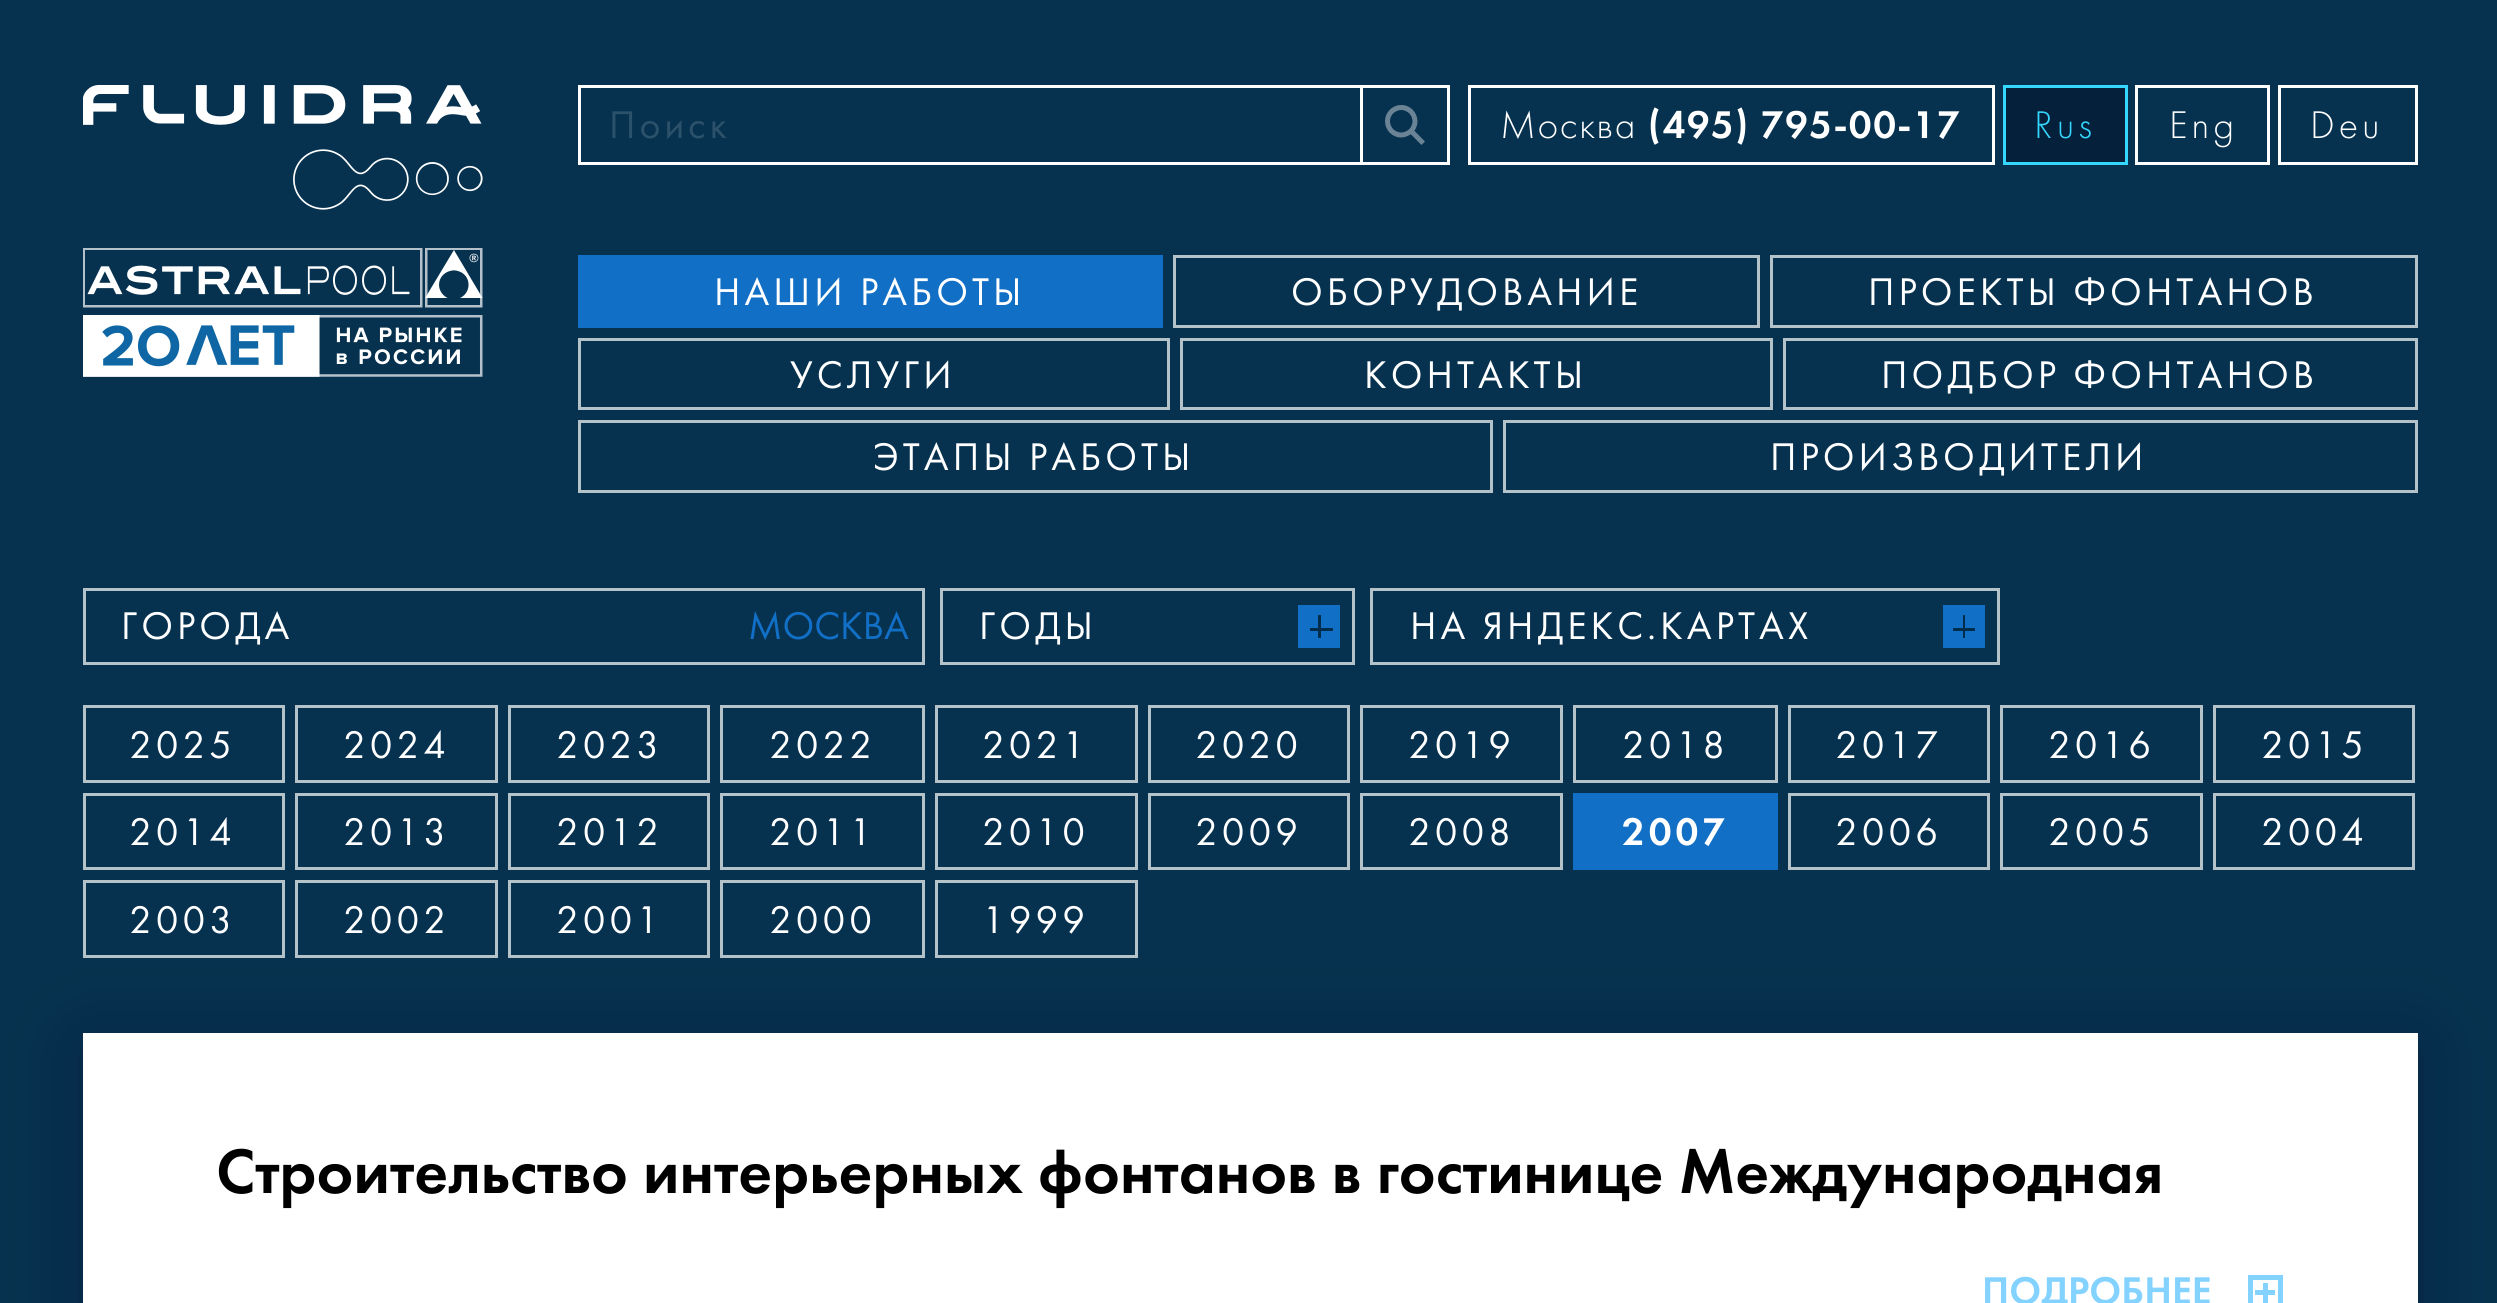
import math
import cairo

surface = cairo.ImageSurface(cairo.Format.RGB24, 2497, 1303)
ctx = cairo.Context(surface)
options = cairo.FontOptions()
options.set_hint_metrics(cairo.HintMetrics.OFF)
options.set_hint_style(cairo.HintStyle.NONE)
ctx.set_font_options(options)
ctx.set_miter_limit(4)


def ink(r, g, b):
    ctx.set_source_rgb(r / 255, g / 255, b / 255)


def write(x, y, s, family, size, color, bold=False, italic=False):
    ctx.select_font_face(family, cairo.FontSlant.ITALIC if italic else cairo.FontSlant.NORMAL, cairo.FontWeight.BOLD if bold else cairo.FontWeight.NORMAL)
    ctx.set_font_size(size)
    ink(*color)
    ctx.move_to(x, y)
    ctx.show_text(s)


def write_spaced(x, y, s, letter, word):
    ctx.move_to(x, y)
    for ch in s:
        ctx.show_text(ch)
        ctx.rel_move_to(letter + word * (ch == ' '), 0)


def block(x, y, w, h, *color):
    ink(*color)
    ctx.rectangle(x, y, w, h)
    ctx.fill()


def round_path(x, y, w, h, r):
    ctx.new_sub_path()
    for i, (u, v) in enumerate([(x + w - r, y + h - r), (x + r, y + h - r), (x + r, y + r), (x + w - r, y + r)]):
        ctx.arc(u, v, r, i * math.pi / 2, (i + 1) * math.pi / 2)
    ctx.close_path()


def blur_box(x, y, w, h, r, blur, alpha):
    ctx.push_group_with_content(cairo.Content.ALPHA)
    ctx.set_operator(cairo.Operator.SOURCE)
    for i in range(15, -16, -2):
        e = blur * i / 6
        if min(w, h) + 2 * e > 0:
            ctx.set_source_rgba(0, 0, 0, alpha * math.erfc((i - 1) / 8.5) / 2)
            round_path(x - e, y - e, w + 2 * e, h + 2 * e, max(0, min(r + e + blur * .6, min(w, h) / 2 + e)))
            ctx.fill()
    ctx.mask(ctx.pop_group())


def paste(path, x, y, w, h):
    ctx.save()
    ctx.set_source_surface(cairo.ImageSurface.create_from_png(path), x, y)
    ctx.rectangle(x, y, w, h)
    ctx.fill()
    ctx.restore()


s1 = dict(family="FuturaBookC", size=40, color=(18, 111, 198))
s2 = dict(family="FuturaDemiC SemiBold", size=65, color=(0, 0, 0))
s3 = dict(family="FuturaDemiC SemiBold", size=40, color=(131, 210, 255))

ink(6, 50, 79)
ctx.paint()
paste("pic1.png", 83, 85, 400, 125)
paste("pic2.png", 83, 248, 400, 60)
paste("pic3.png", 83, 315, 400, 62)
ctx.rectangle(579.5, 86.5, 782, 77)
ink(255, 255, 255)
ctx.set_line_width(3)
ctx.stroke()
ctx.select_font_face("FuturaBookC")
ctx.set_font_size(40)
ink(44, 81, 106)
write_spaced(609, 138, "Поиск", 4, 0)
ctx.rectangle(1361.5, 86.5, 87, 77)
ink(255, 255, 255)
ctx.stroke()
paste("pic4.png", 1385, 105, 40, 40)
ctx.rectangle(1469.5, 86.5, 524, 77)
ctx.stroke()
ctx.select_font_face("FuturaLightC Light")
write_spaced(1500, 138, "Москва", 1.6, 0)
ctx.select_font_face("FuturaDemiC SemiBold")
write_spaced(1648, 138, "(495) 795-00-17", 1.6, 0)
ink(4, 32, 59)
ctx.rectangle(2004.5, 86.5, 122, 77)
ctx.fill_preserve()
ink(53, 215, 255)
ctx.stroke()
ctx.select_font_face("FuturaLightC Light")
write_spaced(2034, 138, "Rus", 4, 0)
ctx.rectangle(2136.5, 86.5, 132, 77)
ink(255, 255, 255)
ctx.stroke()
write_spaced(2169, 138, "Eng", 4, 0)
ctx.rectangle(2279.5, 86.5, 137, 77)
ctx.stroke()
write_spaced(2310, 138, "Deu", 4, 0)
block(578, 255, 585, 73, 18, 111, 198)
ctx.select_font_face("FuturaBookC")
ink(255, 255, 255)
write_spaced(714, 305, "НАШИ РАБОТЫ", 4, 0)
ctx.rectangle(1174.5, 256.5, 584, 70)
ink(180, 194, 202)
ctx.stroke()
ink(255, 255, 255)
write_spaced(1291, 305, "ОБОРУДОВАНИЕ", 4, 0)
ctx.rectangle(1771.5, 256.5, 645, 70)
ink(180, 194, 202)
ctx.stroke()
ink(255, 255, 255)
write_spaced(1868, 305, "ПРОЕКТЫ ФОНТАНОВ", 4, 0)
ctx.rectangle(579.5, 339.5, 589, 69)
ink(180, 194, 202)
ctx.stroke()
ink(255, 255, 255)
write_spaced(790, 388, "УСЛУГИ", 4, 0)
ctx.rectangle(1181.5, 339.5, 590, 69)
ink(180, 194, 202)
ctx.stroke()
ink(255, 255, 255)
write_spaced(1364, 388, "КОНТАКТЫ", 4, 0)
ctx.rectangle(1784.5, 339.5, 632, 69)
ink(180, 194, 202)
ctx.stroke()
ink(255, 255, 255)
write_spaced(1881, 388, "ПОДБОР ФОНТАНОВ", 4, 0)
ctx.rectangle(579.5, 421.5, 912, 70)
ink(180, 194, 202)
ctx.stroke()
ink(255, 255, 255)
write_spaced(873, 470, "ЭТАПЫ РАБОТЫ", 4, 0)
ctx.rectangle(1504.5, 421.5, 912, 70)
ink(180, 194, 202)
ctx.stroke()
ink(255, 255, 255)
write_spaced(1770, 470, "ПРОИЗВОДИТЕЛИ", 4, 0)
ctx.rectangle(84.5, 589.5, 839, 74)
ink(180, 194, 202)
ctx.stroke()
ink(255, 255, 255)
write_spaced(121, 639, "ГОРОДА", 4, 0)
write(748, 639, "МОСКВА", **s1)
ctx.rectangle(941.5, 589.5, 412, 74)
ink(180, 194, 202)
ctx.stroke()
ink(255, 255, 255)
write_spaced(979, 639, "ГОДЫ", 4, 0)
block(1298, 605, 42, 43, 18, 111, 198)
block(1310, 628, 23, 3, 0, 45, 75)
block(1318, 615, 3, 23, 0, 45, 75)
ctx.rectangle(1371.5, 589.5, 627, 74)
ink(180, 194, 202)
ctx.stroke()
ink(255, 255, 255)
write_spaced(1410, 639, "НА ЯНДЕКС.КАРТАХ", 4, 0)
block(1943, 605, 42, 43, 18, 111, 198)
block(1953, 628, 22, 3, 0, 45, 75)
block(1963, 615, 2, 23, 0, 45, 75)
ctx.rectangle(84.5, 706.5, 199, 75)
ink(180, 194, 202)
ctx.stroke()
ink(255, 255, 255)
write_spaced(129, 758, "2025", 4, 0)
ctx.rectangle(296.5, 706.5, 200, 75)
ink(180, 194, 202)
ctx.stroke()
ink(255, 255, 255)
write_spaced(343, 758, "2024", 4, 0)
ctx.rectangle(509.5, 706.5, 199, 75)
ink(180, 194, 202)
ctx.stroke()
ink(255, 255, 255)
write_spaced(556, 758, "2023", 4, 0)
ctx.rectangle(721.5, 706.5, 202, 75)
ink(180, 194, 202)
ctx.stroke()
ink(255, 255, 255)
write_spaced(769, 758, "2022", 4, 0)
ctx.rectangle(936.5, 706.5, 200, 75)
ink(180, 194, 202)
ctx.stroke()
ink(255, 255, 255)
write_spaced(982, 758, "2021", 4, 0)
ctx.rectangle(1149.5, 706.5, 199, 75)
ink(180, 194, 202)
ctx.stroke()
ink(255, 255, 255)
write_spaced(1195, 758, "2020", 4, 0)
ctx.rectangle(1361.5, 706.5, 200, 75)
ink(180, 194, 202)
ctx.stroke()
ink(255, 255, 255)
write_spaced(1408, 758, "2019", 4, 0)
ctx.rectangle(1574.5, 706.5, 202, 75)
ink(180, 194, 202)
ctx.stroke()
ink(255, 255, 255)
write_spaced(1622, 758, "2018", 4, 0)
ctx.rectangle(1789.5, 706.5, 199, 75)
ink(180, 194, 202)
ctx.stroke()
ink(255, 255, 255)
write_spaced(1835, 758, "2017", 4, 0)
ctx.rectangle(2001.5, 706.5, 200, 75)
ink(180, 194, 202)
ctx.stroke()
ink(255, 255, 255)
write_spaced(2048, 758, "2016", 4, 0)
ctx.rectangle(2214.5, 706.5, 199, 75)
ink(180, 194, 202)
ctx.stroke()
ink(255, 255, 255)
write_spaced(2261, 758, "2015", 4, 0)
ctx.rectangle(84.5, 794.5, 199, 74)
ink(180, 194, 202)
ctx.stroke()
ink(255, 255, 255)
write_spaced(129, 845, "2014", 4, 0)
ctx.rectangle(296.5, 794.5, 200, 74)
ink(180, 194, 202)
ctx.stroke()
ink(255, 255, 255)
write_spaced(343, 845, "2013", 4, 0)
ctx.rectangle(509.5, 794.5, 199, 74)
ink(180, 194, 202)
ctx.stroke()
ink(255, 255, 255)
write_spaced(556, 845, "2012", 4, 0)
ctx.rectangle(721.5, 794.5, 202, 74)
ink(180, 194, 202)
ctx.stroke()
ink(255, 255, 255)
write_spaced(769, 845, "2011", 4, 0)
ctx.rectangle(936.5, 794.5, 200, 74)
ink(180, 194, 202)
ctx.stroke()
ink(255, 255, 255)
write_spaced(982, 845, "2010", 4, 0)
ctx.rectangle(1149.5, 794.5, 199, 74)
ink(180, 194, 202)
ctx.stroke()
ink(255, 255, 255)
write_spaced(1195, 845, "2009", 4, 0)
ctx.rectangle(1361.5, 794.5, 200, 74)
ink(180, 194, 202)
ctx.stroke()
ink(255, 255, 255)
write_spaced(1408, 845, "2008", 4, 0)
block(1573, 793, 205, 77, 18, 111, 198)
ctx.select_font_face("FuturaDemiC SemiBold")
ink(255, 255, 255)
write_spaced(1622, 845, "2007", 4, 0)
ctx.rectangle(1789.5, 794.5, 199, 74)
ink(180, 194, 202)
ctx.stroke()
ctx.select_font_face("FuturaBookC")
ink(255, 255, 255)
write_spaced(1835, 845, "2006", 4, 0)
ctx.rectangle(2001.5, 794.5, 200, 74)
ink(180, 194, 202)
ctx.stroke()
ink(255, 255, 255)
write_spaced(2048, 845, "2005", 4, 0)
ctx.rectangle(2214.5, 794.5, 199, 74)
ink(180, 194, 202)
ctx.stroke()
ink(255, 255, 255)
write_spaced(2261, 845, "2004", 4, 0)
ctx.rectangle(84.5, 881.5, 199, 75)
ink(180, 194, 202)
ctx.stroke()
ink(255, 255, 255)
write_spaced(129, 933, "2003", 4, 0)
ctx.rectangle(296.5, 881.5, 200, 75)
ink(180, 194, 202)
ctx.stroke()
ink(255, 255, 255)
write_spaced(343, 933, "2002", 4, 0)
ctx.rectangle(509.5, 881.5, 199, 75)
ink(180, 194, 202)
ctx.stroke()
ink(255, 255, 255)
write_spaced(556, 933, "2001", 4, 0)
ctx.rectangle(721.5, 881.5, 202, 75)
ink(180, 194, 202)
ctx.stroke()
ink(255, 255, 255)
write_spaced(769, 933, "2000", 4, 0)
ctx.rectangle(936.5, 881.5, 200, 75)
ink(180, 194, 202)
ctx.stroke()
ink(255, 255, 255)
write_spaced(982, 933, "1999", 4, 0)
ink(4, 5, 43)
blur_box(83, 1043, 2335, 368, 0, 36, 0.35)
block(83, 1033, 2335, 270, 255, 255, 255)
write(216, 1193, "Строительство интерьерных фонтанов в гостинице Международная", **s2)
write(1982, 1304, "ПОДРОБНЕЕ", **s3)
ctx.rectangle(2250.5, 1277.5, 30, 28)
ctx.set_line_width(5)
ctx.stroke()
block(2255, 1290, 20, 5, 131, 210, 255)
block(2263, 1283, 5, 20, 131, 210, 255)
surface.write_to_png("screenshot.png")
